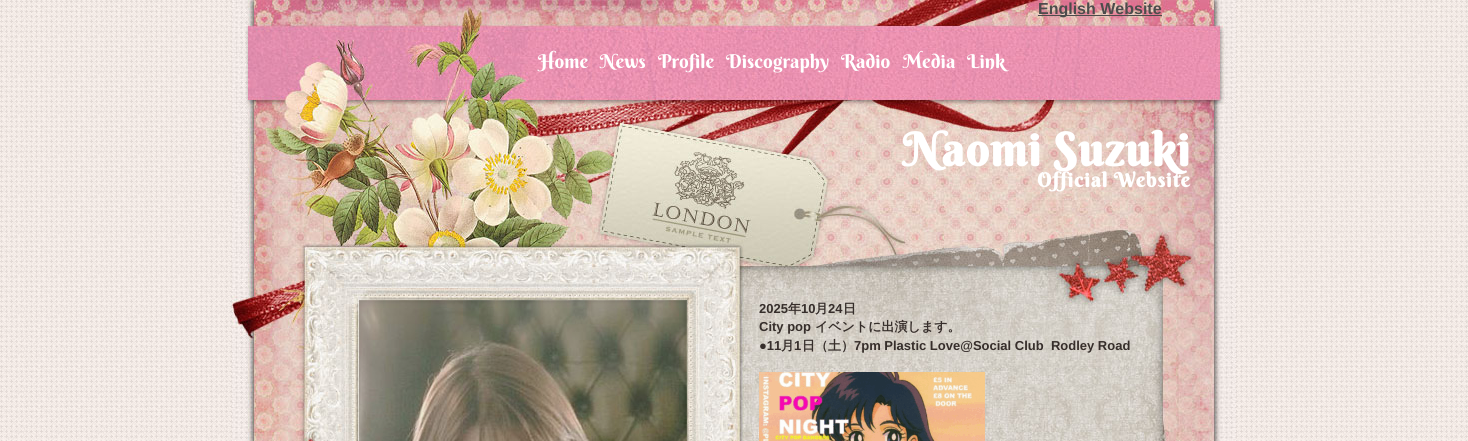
import math
import cairo

surface = cairo.ImageSurface(cairo.Format.RGB24, 1468, 441)
ctx = cairo.Context(surface)
options = cairo.FontOptions()
options.set_hint_metrics(cairo.HintMetrics.OFF)
options.set_hint_style(cairo.HintStyle.NONE)
ctx.set_font_options(options)
ctx.set_miter_limit(4)


def ink(r, g, b):
    ctx.set_source_rgb(r / 255, g / 255, b / 255)


def write(x, y, s, family, size, color, bold=False, italic=False):
    ctx.select_font_face(family, cairo.FontSlant.ITALIC if italic else cairo.FontSlant.NORMAL, cairo.FontWeight.BOLD if bold else cairo.FontWeight.NORMAL)
    ctx.set_font_size(size)
    ink(*color)
    ctx.move_to(x, y)
    ctx.show_text(s)


def write_spaced(x, y, s, letter, word):
    ctx.move_to(x, y)
    for ch in s:
        ctx.show_text(ch)
        ctx.rel_move_to(letter + word * (ch == ' '), 0)


def block(x, y, w, h, *color):
    ink(*color)
    ctx.rectangle(x, y, w, h)
    ctx.fill()


def paste(path, x, y, w, h):
    ctx.save()
    ctx.set_source_surface(cairo.ImageSurface.create_from_png(path), x, y)
    ctx.rectangle(x, y, w, h)
    ctx.fill()
    ctx.restore()


s1 = dict(family="Liberation Sans", size=16, color=(76, 76, 76), bold=True)
s2 = dict(family="Berkshire Swash", size=19, color=(255, 255, 255))
s3 = dict(family="Liberation Sans", size=13, color=(54, 46, 43), bold=True)
s4 = dict(family="WenQuanYi Zen Hei", size=13, color=(54, 46, 43), bold=True)

ink(255, 255, 255)
ctx.paint()
paste("pic1.png", 0, 0, 1468, 441)
paste("pic2.png", 232, 0, 1004, 441)
block(1038, 15, 124, 1, 76, 76, 76)
write(1038, 14, "English Website", **s1)
write(538, 68, "Home", **s2)
write(600, 68, "News", **s2)
write(658, 68, "Profile", **s2)
write(726, 68, "Discography", **s2)
write(841, 68, "Radio", **s2)
write(903, 68, "Media", **s2)
write(967, 68, "Link", **s2)
ctx.select_font_face("Berkshire Swash", cairo.FontSlant.NORMAL, cairo.FontWeight.BOLD)
ctx.set_font_size(46)
write_spaced(903, 166, "Naomi Suzuki", 1, 0)
ctx.set_font_size(20)
write_spaced(1037, 187, "Official Website", 1, 0)
paste("pic3.png", 359, 300, 328, 141)
write(759, 313, "2025", **s3)
write(788, 313, "年", **s4)
write(801, 313, "10", **s3)
write(815, 313, "月", **s4)
write(828, 313, "24", **s3)
write(843, 313, "日", **s4)
write(759, 331, "City pop", **s3)
write(815, 331, "イベントに出演します。", **s4)
write(759, 350, "●11", **s3)
write(781, 350, "月", **s4)
write(794, 350, "1", **s3)
write(802, 350, "日（土）", **s4)
write(854, 350, "7pm Plastic Love@Social Club  Rodley Road", **s3)
paste("pic4.png", 759, 372, 226, 69)
surface.write_to_png("screenshot.png")
